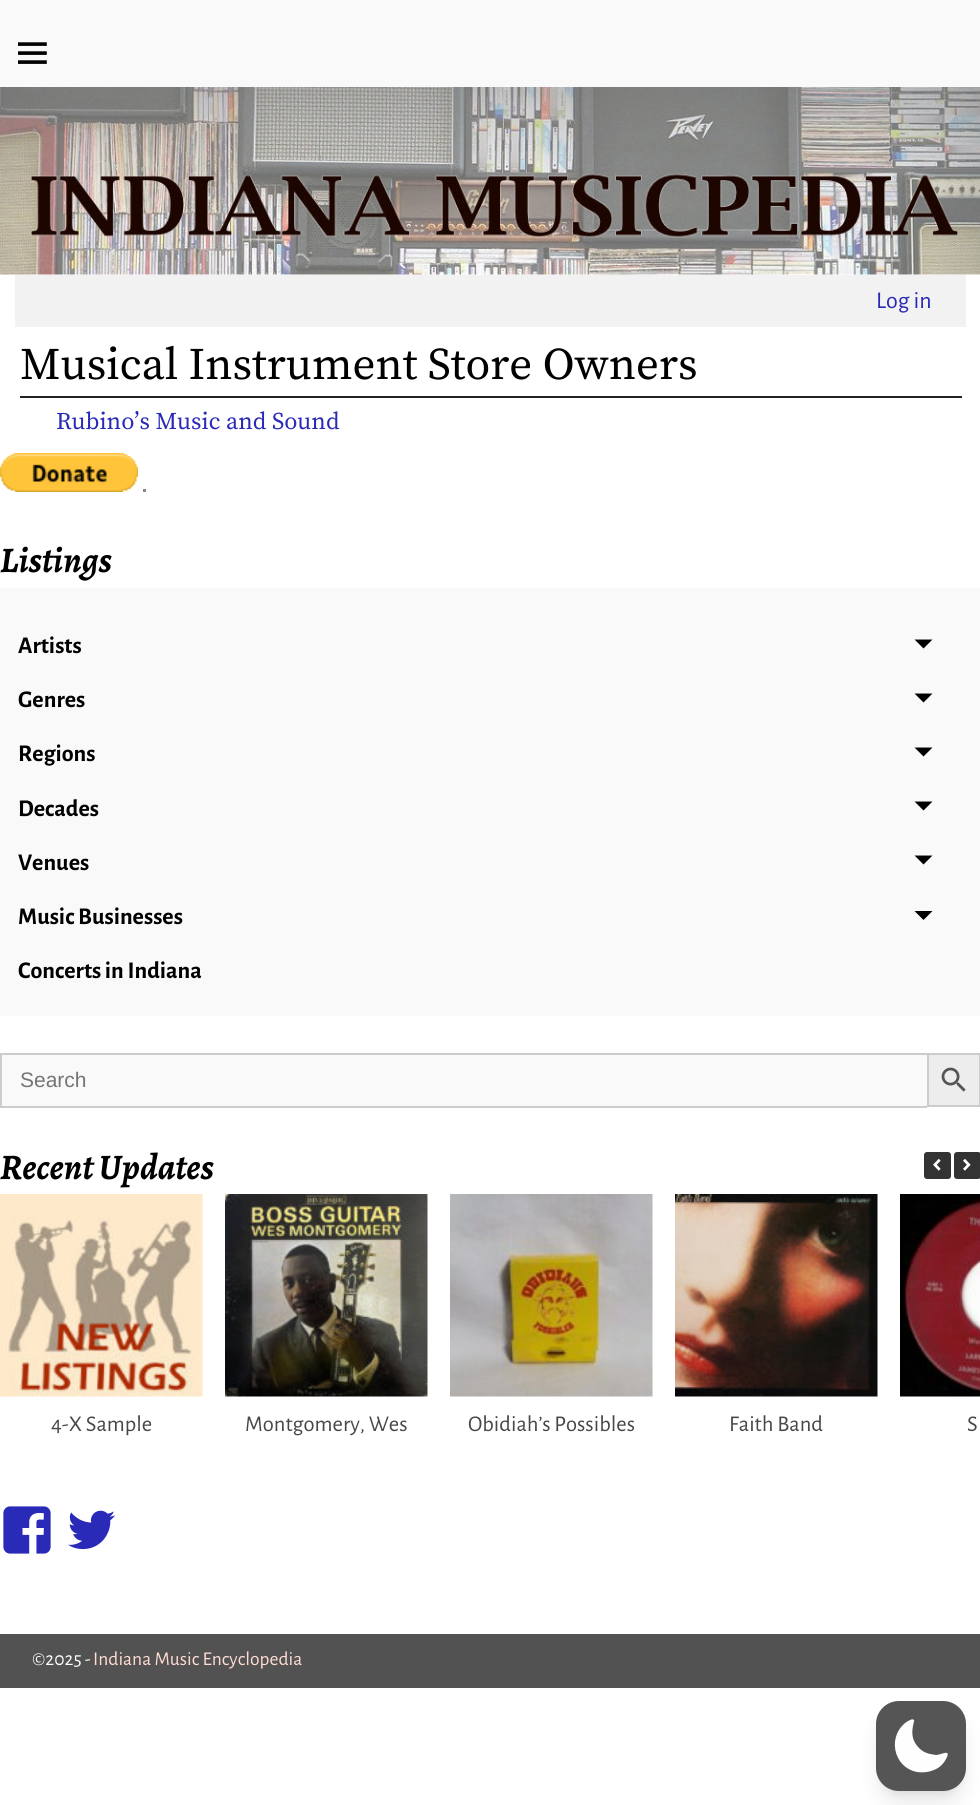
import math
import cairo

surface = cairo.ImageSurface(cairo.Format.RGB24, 980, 1805)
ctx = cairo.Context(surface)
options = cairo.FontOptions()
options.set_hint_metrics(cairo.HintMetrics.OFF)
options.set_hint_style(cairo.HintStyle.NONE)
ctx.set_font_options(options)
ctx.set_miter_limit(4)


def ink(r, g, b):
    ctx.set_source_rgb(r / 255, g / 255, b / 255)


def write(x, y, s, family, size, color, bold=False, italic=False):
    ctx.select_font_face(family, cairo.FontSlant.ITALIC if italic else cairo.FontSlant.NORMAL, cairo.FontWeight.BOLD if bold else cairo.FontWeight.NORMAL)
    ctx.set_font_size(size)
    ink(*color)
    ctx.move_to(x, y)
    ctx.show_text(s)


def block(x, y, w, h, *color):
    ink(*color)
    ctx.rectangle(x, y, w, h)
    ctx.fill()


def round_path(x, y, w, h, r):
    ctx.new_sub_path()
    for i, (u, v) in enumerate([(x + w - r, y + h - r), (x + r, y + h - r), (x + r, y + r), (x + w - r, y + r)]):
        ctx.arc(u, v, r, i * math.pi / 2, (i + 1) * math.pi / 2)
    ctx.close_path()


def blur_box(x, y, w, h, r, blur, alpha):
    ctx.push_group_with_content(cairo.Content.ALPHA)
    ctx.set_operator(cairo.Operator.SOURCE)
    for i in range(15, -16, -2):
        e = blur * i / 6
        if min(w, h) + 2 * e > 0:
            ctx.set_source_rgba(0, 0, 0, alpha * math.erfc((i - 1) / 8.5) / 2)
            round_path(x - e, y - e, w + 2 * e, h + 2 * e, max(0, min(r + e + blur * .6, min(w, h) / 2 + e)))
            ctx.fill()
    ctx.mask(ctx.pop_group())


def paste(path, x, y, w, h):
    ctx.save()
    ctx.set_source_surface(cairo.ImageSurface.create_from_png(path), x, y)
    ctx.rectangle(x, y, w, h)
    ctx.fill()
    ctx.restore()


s1 = dict(family="Alegreya Sans", size=24, color=(42, 42, 184))
s2 = dict(family="Source Serif Pro", size=45, color=(0, 0, 0))
s3 = dict(family="Source Serif Pro", size=24, color=(42, 42, 184))
s4 = dict(family="Alegreya", size=36, color=(0, 0, 0), bold=True, italic=True)
s5 = dict(family="Alegreya Sans", size=24, color=(0, 0, 0), bold=True)
s6 = dict(family="Liberation Sans", size=21, color=(117, 117, 117))
s7 = dict(family="Alegreya Sans", size=22.5, color=(71, 71, 71))
s8 = dict(family="Alegreya Sans", size=19.5, color=(255, 255, 255))
s9 = dict(family="Alegreya Sans", size=19.5, color=(255, 219, 212))

ink(255, 255, 255)
ctx.paint()
block(0, 0, 980, 87, 249, 249, 249)
paste("pic1.png", 18, 42, 29, 22)
paste("pic2.png", 0, 87, 980, 188)
block(15, 275, 951, 52, 242, 242, 242)
write(876, 308, "Log in", **s1)
block(20, 396, 942, 2, 34, 34, 34)
write(20, 379, "Musical Instrument Store Owners", **s2)
write(56, 429, "Rubino’s Music and Sound", **s3)
paste("pic3.png", 0, 453, 138, 39)
block(143, 489, 3, 3, 135, 135, 135)
write(0, 572, "Listings", **s4)
block(0, 588, 980, 428, 249, 249, 249)
write(18, 653, "Artists", **s5)
ctx.new_path()
ctx.move_to(914.5, 639.5)
ctx.line_to(932.5, 639.5)
ctx.line_to(923.5, 648.5)
ctx.close_path()
ctx.fill()
write(18, 707, "Genres", **s5)
ctx.new_path()
ctx.move_to(914.5, 693.5)
ctx.line_to(932.5, 693.5)
ctx.line_to(923.5, 702.5)
ctx.close_path()
ctx.fill()
write(18, 761, "Regions", **s5)
ctx.new_path()
ctx.move_to(914.5, 747.5)
ctx.line_to(932.5, 747.5)
ctx.line_to(923.5, 756.5)
ctx.close_path()
ctx.fill()
write(18, 816, "Decades", **s5)
ctx.new_path()
ctx.move_to(914.5, 801.5)
ctx.line_to(932.5, 801.5)
ctx.line_to(923.5, 810.5)
ctx.close_path()
ctx.fill()
write(18, 870, "Venues", **s5)
ctx.new_path()
ctx.move_to(914.5, 855.5)
ctx.line_to(932.5, 855.5)
ctx.line_to(923.5, 864.5)
ctx.close_path()
ctx.fill()
write(18, 924, "Music Businesses", **s5)
ctx.new_path()
ctx.move_to(914.5, 911)
ctx.line_to(932.5, 911)
ctx.line_to(923.5, 920)
ctx.close_path()
ctx.fill()
write(18, 978, "Concerts in Indiana", **s5)
block(2, 1055, 925, 51, 249, 249, 249)
block(0, 1053, 927, 2, 204, 204, 204)
block(0, 1106, 927, 2, 204, 204, 204)
block(0, 1053, 2, 54, 204, 204, 204)
write(20, 1087, "Search", **s6)
ink(237, 237, 237)
ctx.rectangle(928, 1054, 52, 52)
ctx.fill_preserve()
ink(204, 204, 204)
ctx.stroke()
paste("pic4.png", 941, 1067, 25, 25)
write(0, 1179, "Recent Updates", **s4)
ink(51, 51, 51)
round_path(924, 1152, 27, 27, 3)
ctx.fill()
paste("pic5.png", 933, 1158, 8, 13)
round_path(954, 1152, 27, 27, 3)
ctx.fill()
paste("pic6.png", 963, 1158, 8, 13)
paste("pic7.png", 0, 1194, 203, 203)
write(51, 1431, "4-X Sample", **s7)
paste("pic8.png", 225, 1194, 203, 203)
write(245, 1431, "Montgomery, Wes", **s7)
paste("pic9.png", 450, 1194, 203, 203)
write(468, 1431, "Obidiah’s Possibles", **s7)
paste("pic10.png", 675, 1194, 203, 203)
write(729, 1431, "Faith Band", **s7)
paste("pic11.png", 900, 1194, 80, 203)
write(967, 1431, "S", **s7)
paste("pic12.png", 3, 1506, 48, 48)
paste("pic13.png", 68, 1510, 47, 40)
block(0, 1634, 980, 54, 82, 82, 82)
write(32, 1665, "©2025 -", **s8)
write(93, 1665, "Indiana Music Encyclopedia", **s9)
ink(0, 0, 0)
blur_box(882, 1713, 78, 78, 17, 4.5, 0.1)
blur_box(881, 1721, 81, 81, 18, 11, 0.1)
ink(85, 85, 85)
round_path(876, 1701, 90, 90, 23)
ctx.fill()
ink(254, 254, 254)
ctx.set_fill_rule(cairo.FillRule.EVEN_ODD)
ctx.new_path()
ctx.move_to(914, 1720)
ctx.curve_to(915, 1722, 907, 1736, 919, 1748)
ctx.curve_to(924, 1753, 929, 1754, 936, 1755)
ctx.curve_to(941, 1755, 952, 1748, 946, 1759)
ctx.curve_to(944, 1763, 941, 1766, 938, 1768)
ctx.curve_to(931, 1772, 924, 1773, 917, 1772)
ctx.curve_to(892, 1767, 887, 1734, 908, 1721)
ctx.curve_to(909, 1721, 912, 1718, 914, 1720)
ctx.close_path()
ctx.fill()
surface.write_to_png("screenshot.png")
